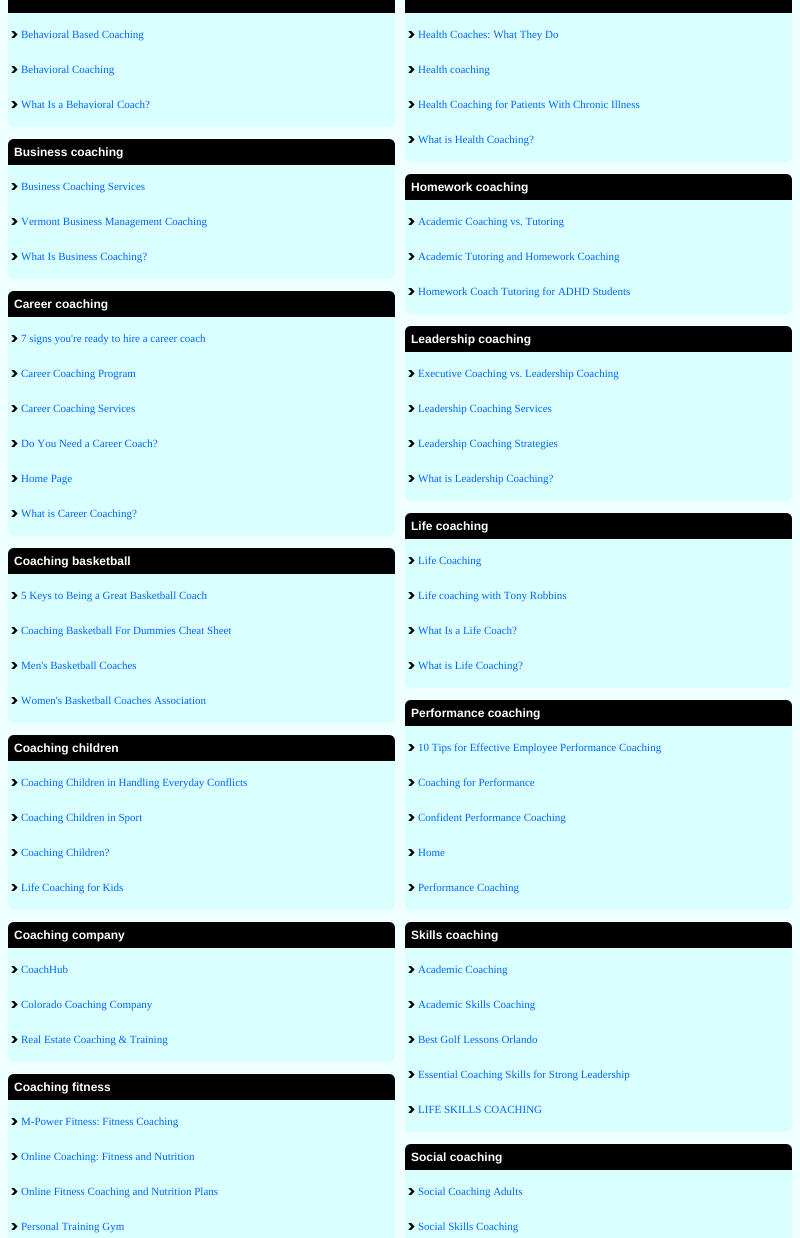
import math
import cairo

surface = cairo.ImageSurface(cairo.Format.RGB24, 800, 1238)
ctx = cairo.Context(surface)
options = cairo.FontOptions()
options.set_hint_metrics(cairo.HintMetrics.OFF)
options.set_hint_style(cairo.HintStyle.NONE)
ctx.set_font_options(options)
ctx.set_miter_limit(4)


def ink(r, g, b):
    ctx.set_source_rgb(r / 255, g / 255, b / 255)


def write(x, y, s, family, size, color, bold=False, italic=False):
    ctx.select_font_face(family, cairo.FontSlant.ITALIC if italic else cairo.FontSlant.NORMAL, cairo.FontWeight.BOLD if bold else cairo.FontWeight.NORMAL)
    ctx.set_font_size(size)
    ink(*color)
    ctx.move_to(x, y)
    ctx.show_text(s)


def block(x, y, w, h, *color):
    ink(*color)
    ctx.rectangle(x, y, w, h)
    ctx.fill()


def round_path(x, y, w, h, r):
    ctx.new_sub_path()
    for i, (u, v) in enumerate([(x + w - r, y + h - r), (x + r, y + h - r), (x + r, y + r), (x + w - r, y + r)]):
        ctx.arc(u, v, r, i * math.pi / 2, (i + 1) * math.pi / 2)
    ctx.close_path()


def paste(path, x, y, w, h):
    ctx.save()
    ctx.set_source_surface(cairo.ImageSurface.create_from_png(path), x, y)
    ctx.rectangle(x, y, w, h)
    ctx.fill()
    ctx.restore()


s1 = dict(family="Liberation Serif", size=11, color=(0, 102, 255))
s2 = dict(family="Liberation Sans", size=12, color=(255, 255, 255), bold=True)

ink(240, 255, 255)
ctx.paint()
ink(217, 255, 255)
round_path(8, -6, 387, 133, 6)
ctx.fill()
block(8, 0, 387, 13, 0, 0, 0)
paste("pic1.png", 11, 31, 7, 7)
write(21, 38, "Behavioral Based Coaching", **s1)
paste("pic1.png", 11, 66, 7, 7)
write(21, 73, "Behavioral Coaching", **s1)
paste("pic1.png", 11, 101, 7, 7)
write(21, 108, "What Is a Behavioral Coach?", **s1)
ink(217, 255, 255)
round_path(405, -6, 387, 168, 6)
ctx.fill()
block(405, 0, 387, 13, 0, 0, 0)
paste("pic1.png", 408, 31, 7, 7)
write(418, 38, "Health Coaches: What They Do", **s1)
paste("pic1.png", 408, 66, 7, 7)
write(418, 73, "Health coaching", **s1)
paste("pic1.png", 408, 101, 7, 7)
write(418, 108, "Health Coaching for Patients With Chronic Illness", **s1)
paste("pic1.png", 408, 136, 7, 7)
write(418, 143, "What is Health Coaching?", **s1)
ink(217, 255, 255)
round_path(8, 139, 387, 140, 6)
ctx.fill()
ink(0, 0, 0)
ctx.new_path()
ctx.move_to(14, 139)
ctx.line_to(389, 139)
ctx.curve_to(392.5, 139, 395, 141.5, 395, 145)
ctx.line_to(395, 165)
ctx.line_to(8, 165)
ctx.line_to(8, 145)
ctx.curve_to(8, 141.5, 10.5, 139, 14, 139)
ctx.close_path()
ctx.fill()
write(14, 156, "Business coaching", **s2)
paste("pic1.png", 11, 183, 7, 7)
write(21, 190, "Business Coaching Services", **s1)
paste("pic1.png", 11, 218, 7, 7)
write(21, 225, "Vermont Business Management Coaching", **s1)
paste("pic1.png", 11, 253, 7, 7)
write(21, 260, "What Is Business Coaching?", **s1)
ink(217, 255, 255)
round_path(405, 174, 387, 140, 6)
ctx.fill()
ink(0, 0, 0)
ctx.new_path()
ctx.move_to(411, 174)
ctx.line_to(786, 174)
ctx.curve_to(789.5, 174, 792, 176.5, 792, 180)
ctx.line_to(792, 200)
ctx.line_to(405, 200)
ctx.line_to(405, 180)
ctx.curve_to(405, 176.5, 407.5, 174, 411, 174)
ctx.close_path()
ctx.fill()
write(411, 191, "Homework coaching", **s2)
paste("pic1.png", 408, 218, 7, 7)
write(418, 225, "Academic Coaching vs. Tutoring", **s1)
paste("pic1.png", 408, 253, 7, 7)
write(418, 260, "Academic Tutoring and Homework Coaching", **s1)
paste("pic1.png", 408, 288, 7, 7)
write(418, 295, "Homework Coach Tutoring for ADHD Students", **s1)
ink(217, 255, 255)
round_path(8, 291, 387, 245, 6)
ctx.fill()
ink(0, 0, 0)
ctx.new_path()
ctx.move_to(14, 291)
ctx.line_to(389, 291)
ctx.curve_to(392.5, 291, 395, 293.5, 395, 297)
ctx.line_to(395, 317)
ctx.line_to(8, 317)
ctx.line_to(8, 297)
ctx.curve_to(8, 293.5, 10.5, 291, 14, 291)
ctx.close_path()
ctx.fill()
write(14, 308, "Career coaching", **s2)
paste("pic1.png", 11, 335, 7, 7)
write(21, 342, "7 signs you're ready to hire a career coach", **s1)
paste("pic1.png", 11, 370, 7, 7)
write(21, 377, "Career Coaching Program", **s1)
paste("pic1.png", 11, 405, 7, 7)
write(21, 412, "Career Coaching Services", **s1)
paste("pic1.png", 11, 440, 7, 7)
write(21, 447, "Do You Need a Career Coach?", **s1)
paste("pic1.png", 11, 475, 7, 7)
write(21, 482, "Home Page", **s1)
paste("pic1.png", 11, 510, 7, 7)
write(21, 517, "What is Career Coaching?", **s1)
ink(217, 255, 255)
round_path(405, 326, 387, 175, 6)
ctx.fill()
ink(0, 0, 0)
ctx.new_path()
ctx.move_to(411, 326)
ctx.line_to(786, 326)
ctx.curve_to(789.5, 326, 792, 328.5, 792, 332)
ctx.line_to(792, 352)
ctx.line_to(405, 352)
ctx.line_to(405, 332)
ctx.curve_to(405, 328.5, 407.5, 326, 411, 326)
ctx.close_path()
ctx.fill()
write(411, 343, "Leadership coaching", **s2)
paste("pic1.png", 408, 370, 7, 7)
write(418, 377, "Executive Coaching vs. Leadership Coaching", **s1)
paste("pic1.png", 408, 405, 7, 7)
write(418, 412, "Leadership Coaching Services", **s1)
paste("pic1.png", 408, 440, 7, 7)
write(418, 447, "Leadership Coaching Strategies", **s1)
paste("pic1.png", 408, 475, 7, 7)
write(418, 482, "What is Leadership Coaching?", **s1)
ink(217, 255, 255)
round_path(8, 548, 387, 175, 6)
ctx.fill()
ink(0, 0, 0)
ctx.new_path()
ctx.move_to(14, 548)
ctx.line_to(389, 548)
ctx.curve_to(392.5, 548, 395, 550.5, 395, 554)
ctx.line_to(395, 574)
ctx.line_to(8, 574)
ctx.line_to(8, 554)
ctx.curve_to(8, 550.5, 10.5, 548, 14, 548)
ctx.close_path()
ctx.fill()
write(14, 565, "Coaching basketball", **s2)
paste("pic1.png", 11, 592, 7, 7)
write(21, 599, "5 Keys to Being a Great Basketball Coach", **s1)
paste("pic1.png", 11, 627, 7, 7)
write(21, 634, "Coaching Basketball For Dummies Cheat Sheet", **s1)
paste("pic1.png", 11, 662, 7, 7)
write(21, 669, "Men's Basketball Coaches", **s1)
paste("pic1.png", 11, 697, 7, 7)
write(21, 704, "Women's Basketball Coaches Association", **s1)
ink(217, 255, 255)
round_path(405, 513, 387, 175, 6)
ctx.fill()
ink(0, 0, 0)
ctx.new_path()
ctx.move_to(411, 513)
ctx.line_to(786, 513)
ctx.curve_to(789.5, 513, 792, 515.5, 792, 519)
ctx.line_to(792, 539)
ctx.line_to(405, 539)
ctx.line_to(405, 519)
ctx.curve_to(405, 515.5, 407.5, 513, 411, 513)
ctx.close_path()
ctx.fill()
write(411, 530, "Life coaching", **s2)
paste("pic1.png", 408, 557, 7, 7)
write(418, 564, "Life Coaching", **s1)
paste("pic1.png", 408, 592, 7, 7)
write(418, 599, "Life coaching with Tony Robbins", **s1)
paste("pic1.png", 408, 627, 7, 7)
write(418, 634, "What Is a Life Coach?", **s1)
paste("pic1.png", 408, 662, 7, 7)
write(418, 669, "What is Life Coaching?", **s1)
ink(217, 255, 255)
round_path(8, 735, 387, 175, 6)
ctx.fill()
ink(0, 0, 0)
ctx.new_path()
ctx.move_to(14, 735)
ctx.line_to(389, 735)
ctx.curve_to(392.5, 735, 395, 737.5, 395, 741)
ctx.line_to(395, 761)
ctx.line_to(8, 761)
ctx.line_to(8, 741)
ctx.curve_to(8, 737.5, 10.5, 735, 14, 735)
ctx.close_path()
ctx.fill()
write(14, 752, "Coaching children", **s2)
paste("pic1.png", 11, 779, 7, 7)
write(21, 786, "Coaching Children in Handling Everyday Conflicts", **s1)
paste("pic1.png", 11, 814, 7, 7)
write(21, 821, "Coaching Children in Sport", **s1)
paste("pic1.png", 11, 849, 7, 7)
write(21, 856, "Coaching Children?", **s1)
paste("pic1.png", 11, 884, 7, 7)
write(21, 891, "Life Coaching for Kids", **s1)
ink(217, 255, 255)
round_path(405, 700, 387, 210, 6)
ctx.fill()
ink(0, 0, 0)
ctx.new_path()
ctx.move_to(411, 700)
ctx.line_to(786, 700)
ctx.curve_to(789.5, 700, 792, 702.5, 792, 706)
ctx.line_to(792, 726)
ctx.line_to(405, 726)
ctx.line_to(405, 706)
ctx.curve_to(405, 702.5, 407.5, 700, 411, 700)
ctx.close_path()
ctx.fill()
write(411, 717, "Performance coaching", **s2)
paste("pic1.png", 408, 744, 7, 7)
write(418, 751, "10 Tips for Effective Employee Performance Coaching", **s1)
paste("pic1.png", 408, 779, 7, 7)
write(418, 786, "Coaching for Performance", **s1)
paste("pic1.png", 408, 814, 7, 7)
write(418, 821, "Confident Performance Coaching", **s1)
paste("pic1.png", 408, 849, 7, 7)
write(418, 856, "Home", **s1)
paste("pic1.png", 408, 884, 7, 7)
write(418, 891, "Performance Coaching", **s1)
ink(217, 255, 255)
round_path(8, 922, 387, 140, 6)
ctx.fill()
ink(0, 0, 0)
ctx.new_path()
ctx.move_to(14, 922)
ctx.line_to(389, 922)
ctx.curve_to(392.5, 922, 395, 924.5, 395, 928)
ctx.line_to(395, 948)
ctx.line_to(8, 948)
ctx.line_to(8, 928)
ctx.curve_to(8, 924.5, 10.5, 922, 14, 922)
ctx.close_path()
ctx.fill()
write(14, 939, "Coaching company", **s2)
paste("pic1.png", 11, 966, 7, 7)
write(21, 973, "CoachHub", **s1)
paste("pic1.png", 11, 1001, 7, 7)
write(21, 1008, "Colorado Coaching Company", **s1)
paste("pic1.png", 11, 1036, 7, 7)
write(21, 1043, "Real Estate Coaching & Training", **s1)
ink(217, 255, 255)
round_path(405, 922, 387, 210, 6)
ctx.fill()
ink(0, 0, 0)
ctx.new_path()
ctx.move_to(411, 922)
ctx.line_to(786, 922)
ctx.curve_to(789.5, 922, 792, 924.5, 792, 928)
ctx.line_to(792, 948)
ctx.line_to(405, 948)
ctx.line_to(405, 928)
ctx.curve_to(405, 924.5, 407.5, 922, 411, 922)
ctx.close_path()
ctx.fill()
write(411, 939, "Skills coaching", **s2)
paste("pic1.png", 408, 966, 7, 7)
write(418, 973, "Academic Coaching", **s1)
paste("pic1.png", 408, 1001, 7, 7)
write(418, 1008, "Academic Skills Coaching", **s1)
paste("pic1.png", 408, 1036, 7, 7)
write(418, 1043, "Best Golf Lessons Orlando", **s1)
paste("pic1.png", 408, 1071, 7, 7)
write(418, 1078, "Essential Coaching Skills for Strong Leadership", **s1)
paste("pic1.png", 408, 1106, 7, 7)
write(418, 1113, "LIFE SKILLS COACHING", **s1)
ink(217, 255, 255)
round_path(8, 1074, 387, 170, 6)
ctx.fill()
ink(0, 0, 0)
ctx.new_path()
ctx.move_to(14, 1074)
ctx.line_to(389, 1074)
ctx.curve_to(392.5, 1074, 395, 1076.5, 395, 1080)
ctx.line_to(395, 1100)
ctx.line_to(8, 1100)
ctx.line_to(8, 1080)
ctx.curve_to(8, 1076.5, 10.5, 1074, 14, 1074)
ctx.close_path()
ctx.fill()
write(14, 1091, "Coaching fitness", **s2)
paste("pic1.png", 11, 1118, 7, 7)
write(21, 1125, "M-Power Fitness: Fitness Coaching", **s1)
paste("pic1.png", 11, 1153, 7, 7)
write(21, 1160, "Online Coaching: Fitness and Nutrition", **s1)
paste("pic1.png", 11, 1188, 7, 7)
write(21, 1195, "Online Fitness Coaching and Nutrition Plans", **s1)
paste("pic1.png", 11, 1223, 7, 7)
write(21, 1230, "Personal Training Gym", **s1)
ink(217, 255, 255)
round_path(405, 1144, 387, 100, 6)
ctx.fill()
ink(0, 0, 0)
ctx.new_path()
ctx.move_to(411, 1144)
ctx.line_to(786, 1144)
ctx.curve_to(789.5, 1144, 792, 1146.5, 792, 1150)
ctx.line_to(792, 1170)
ctx.line_to(405, 1170)
ctx.line_to(405, 1150)
ctx.curve_to(405, 1146.5, 407.5, 1144, 411, 1144)
ctx.close_path()
ctx.fill()
write(411, 1161, "Social coaching", **s2)
paste("pic1.png", 408, 1188, 7, 7)
write(418, 1195, "Social Coaching Adults", **s1)
paste("pic1.png", 408, 1223, 7, 7)
write(418, 1230, "Social Skills Coaching", **s1)
surface.write_to_png("screenshot.png")
